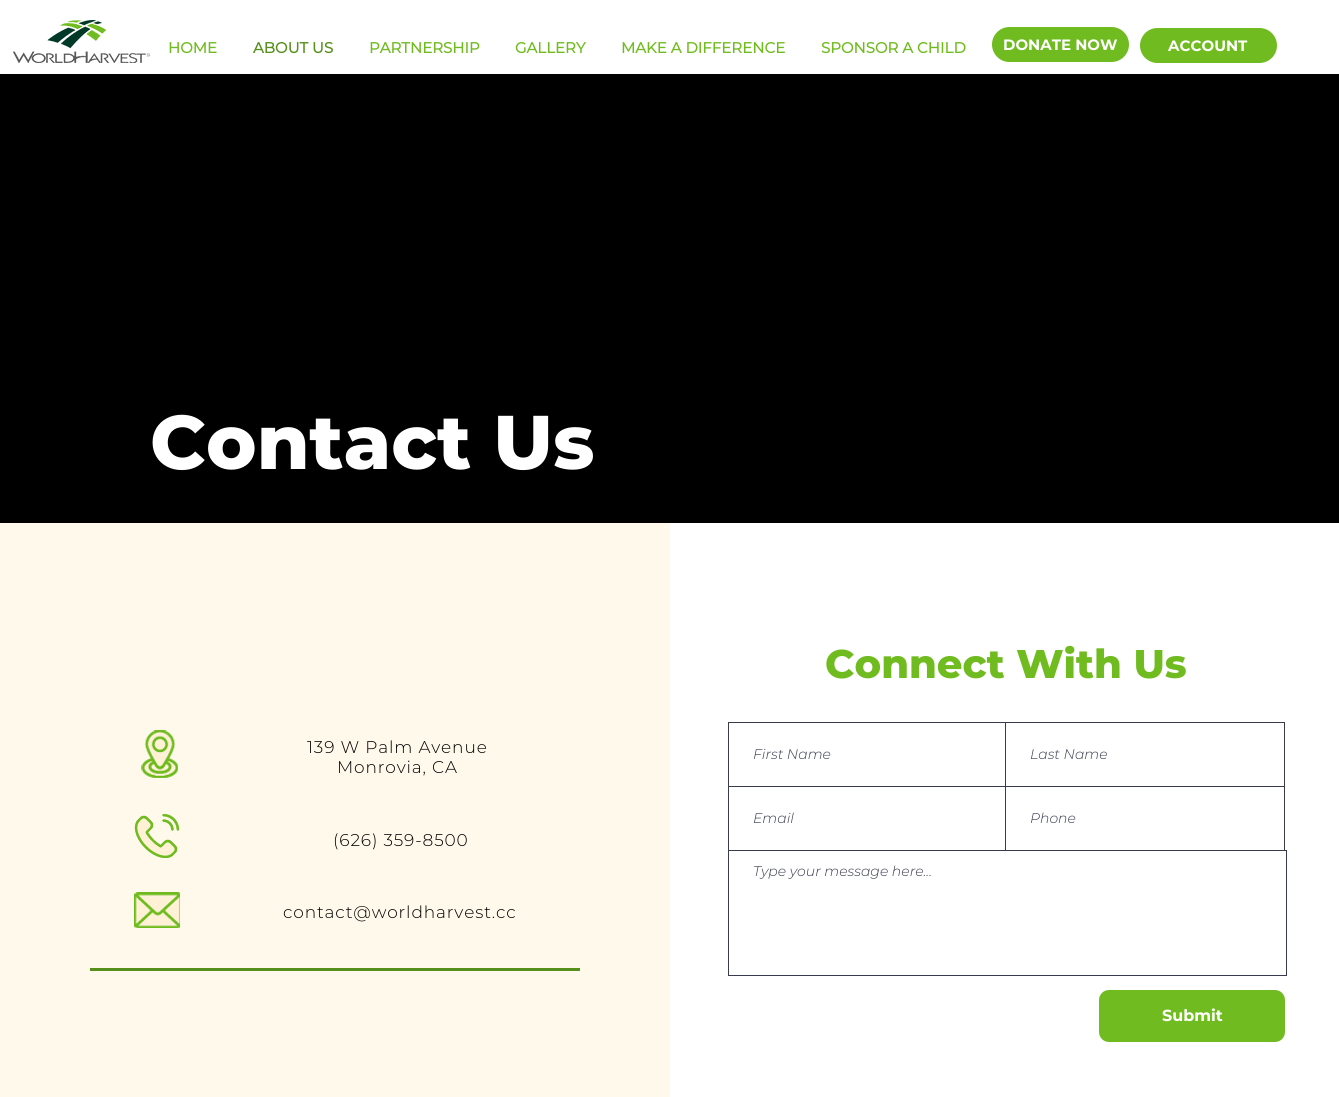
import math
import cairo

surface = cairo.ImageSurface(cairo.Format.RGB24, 1339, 1097)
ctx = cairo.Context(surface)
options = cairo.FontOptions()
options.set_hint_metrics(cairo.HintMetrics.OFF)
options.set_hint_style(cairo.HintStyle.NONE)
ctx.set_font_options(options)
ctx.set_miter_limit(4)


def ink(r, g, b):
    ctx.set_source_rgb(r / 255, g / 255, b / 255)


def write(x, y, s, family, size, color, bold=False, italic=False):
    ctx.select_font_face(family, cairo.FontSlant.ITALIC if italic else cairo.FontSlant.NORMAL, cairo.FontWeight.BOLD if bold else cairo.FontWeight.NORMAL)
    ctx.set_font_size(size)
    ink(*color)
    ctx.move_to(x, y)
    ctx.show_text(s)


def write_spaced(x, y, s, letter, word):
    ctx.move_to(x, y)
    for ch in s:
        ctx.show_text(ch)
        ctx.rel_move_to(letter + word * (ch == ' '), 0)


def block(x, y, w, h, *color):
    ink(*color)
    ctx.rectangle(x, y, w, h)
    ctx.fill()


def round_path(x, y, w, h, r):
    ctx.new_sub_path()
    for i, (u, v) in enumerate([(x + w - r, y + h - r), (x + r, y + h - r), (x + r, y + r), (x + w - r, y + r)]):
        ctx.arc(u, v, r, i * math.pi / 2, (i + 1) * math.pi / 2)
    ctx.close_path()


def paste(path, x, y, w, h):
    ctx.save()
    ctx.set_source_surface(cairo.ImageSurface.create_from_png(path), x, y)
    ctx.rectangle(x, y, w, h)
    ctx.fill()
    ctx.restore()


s1 = dict(family="Montserrat", size=15, color=(112, 188, 32), bold=True)
s2 = dict(family="Montserrat", size=15, color=(86, 143, 26), bold=True)
s3 = dict(family="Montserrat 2", size=15, color=(255, 255, 255), bold=True)
s4 = dict(family="Montserrat ExtraBold", size=76, color=(255, 255, 255))
s5 = dict(family="Montserrat ExtraBold", size=40, color=(112, 188, 32))
s6 = dict(family="Montserrat Light", size=14, color=(55, 59, 77), italic=True)
s7 = dict(family="Montserrat 2", size=16, color=(255, 255, 255), bold=True)

ink(255, 255, 255)
ctx.paint()
paste("pic1.png", 13, 20, 137, 43)
write(168, 53, "HOME", **s1)
write(253, 53, "ABOUT US", **s2)
write(369, 53, "PARTNERSHIP", **s1)
write(515, 53, "GALLERY", **s1)
write(621, 53, "MAKE A DIFFERENCE", **s1)
write(821, 53, "SPONSOR A CHILD", **s1)
round_path(992, 27, 137, 35, 17.5)
ctx.fill()
write(1003, 50, "DONATE NOW", **s3)
ink(112, 188, 32)
round_path(1140, 28, 137, 35, 17.5)
ctx.fill()
write(1168, 51, "ACCOUNT", **s3)
block(0, 74, 1339, 449, 0, 0, 0)
write(150, 469, "Contact Us", **s4)
block(0, 523, 670, 574, 255, 249, 235)
paste("pic2.png", 141, 730, 37, 48)
ctx.select_font_face("Montserrat Light")
ctx.set_font_size(17)
ink(0, 0, 0)
write_spaced(307, 753, "139 W Palm Avenue", 0.85, 0)
write_spaced(337, 773, "Monrovia, CA", 0.85, 0)
paste("pic3.png", 134, 814, 46, 44)
write_spaced(333, 846, "(626) 359-8500", 0.85, 0)
paste("pic4.png", 134, 892, 46, 36)
write_spaced(283, 918, "contact@worldharvest.cc", 0.85, 0)
block(90, 968, 490, 3, 86, 143, 26)
write(825, 678, "Connect With Us", **s5)
ctx.rectangle(728.5, 722.5, 280, 65)
ink(55, 59, 77)
ctx.set_line_width(1)
ctx.stroke()
write(753, 759, "First Name", **s6)
block(1008, 723, 1, 63, 255, 255, 255)
ctx.rectangle(1005.5, 722.5, 279, 65)
ink(55, 59, 77)
ctx.stroke()
write(1030, 759, "Last Name", **s6)
block(729, 787, 276, 1, 255, 255, 255)
ctx.rectangle(728.5, 786.5, 280, 65)
ink(55, 59, 77)
ctx.stroke()
write(753, 823, "Email", **s6)
block(1006, 787, 278, 63, 255, 255, 255)
ctx.rectangle(1005.5, 786.5, 279, 65)
ink(55, 59, 77)
ctx.stroke()
write(1030, 823, "Phone", **s6)
block(729, 851, 556, 1, 255, 255, 255)
ctx.rectangle(728.5, 850.5, 558, 125)
ink(55, 59, 77)
ctx.stroke()
write(753, 876, "Type your message here...", **s6)
ink(112, 188, 32)
round_path(1099, 990, 186, 52, 10)
ctx.fill()
write(1162, 1021, "Submit", **s7)
surface.write_to_png("screenshot.png")
